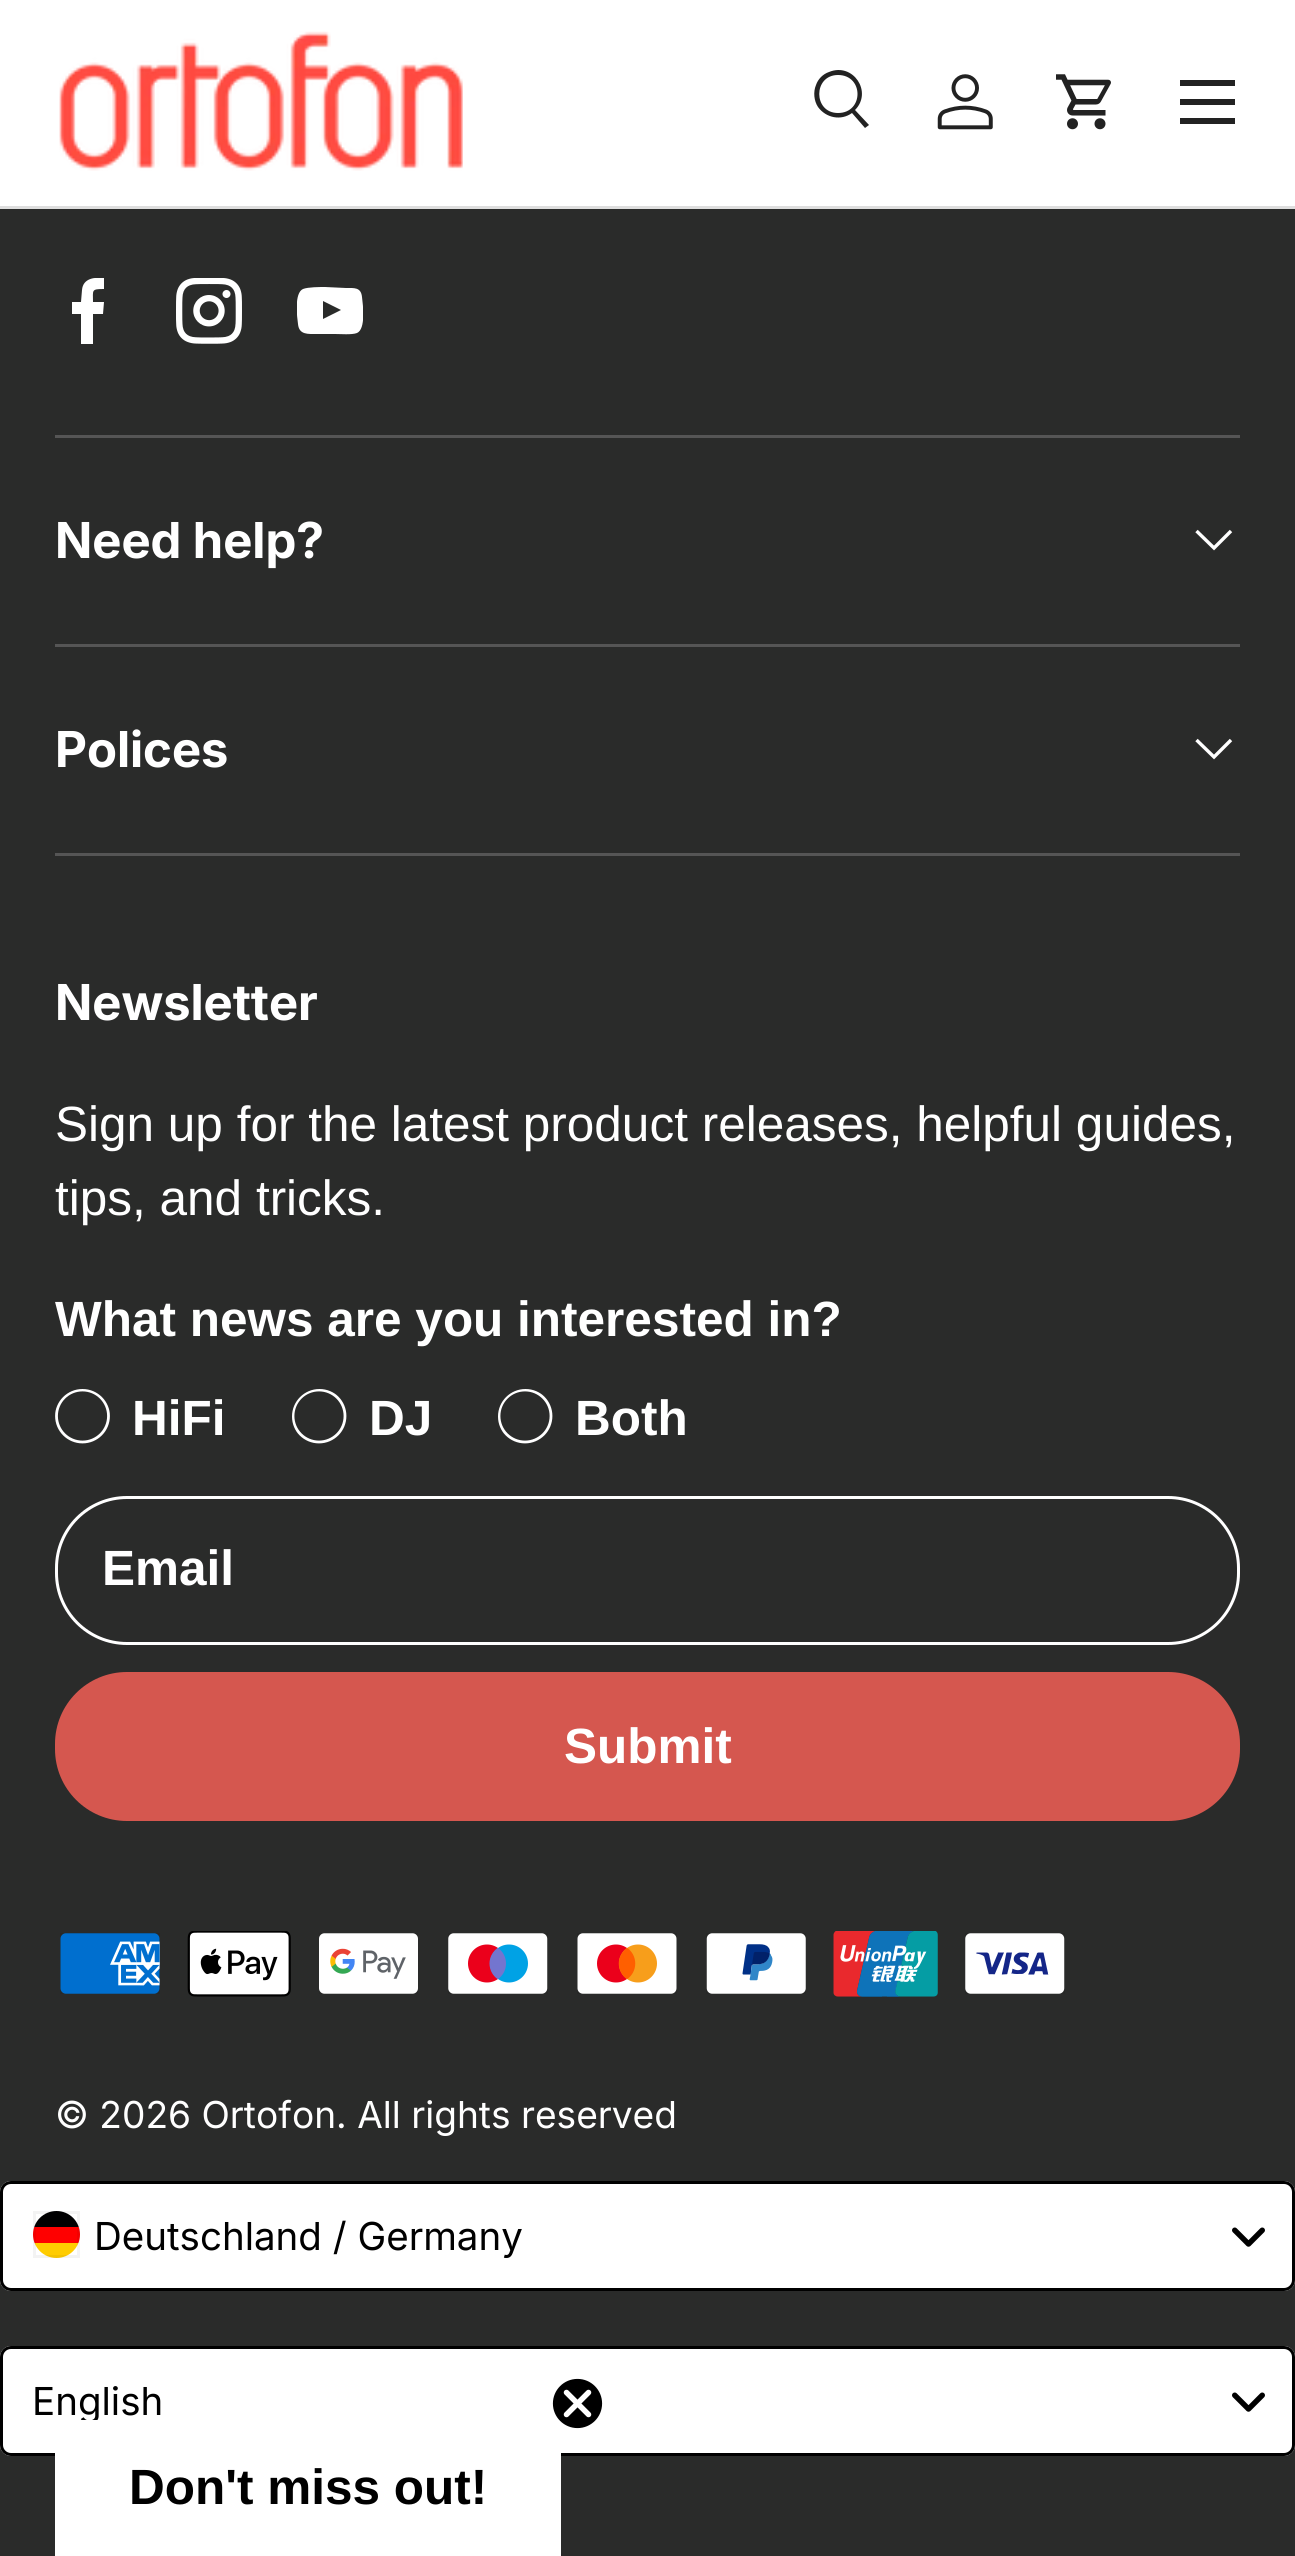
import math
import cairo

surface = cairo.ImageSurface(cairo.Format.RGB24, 1295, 2556)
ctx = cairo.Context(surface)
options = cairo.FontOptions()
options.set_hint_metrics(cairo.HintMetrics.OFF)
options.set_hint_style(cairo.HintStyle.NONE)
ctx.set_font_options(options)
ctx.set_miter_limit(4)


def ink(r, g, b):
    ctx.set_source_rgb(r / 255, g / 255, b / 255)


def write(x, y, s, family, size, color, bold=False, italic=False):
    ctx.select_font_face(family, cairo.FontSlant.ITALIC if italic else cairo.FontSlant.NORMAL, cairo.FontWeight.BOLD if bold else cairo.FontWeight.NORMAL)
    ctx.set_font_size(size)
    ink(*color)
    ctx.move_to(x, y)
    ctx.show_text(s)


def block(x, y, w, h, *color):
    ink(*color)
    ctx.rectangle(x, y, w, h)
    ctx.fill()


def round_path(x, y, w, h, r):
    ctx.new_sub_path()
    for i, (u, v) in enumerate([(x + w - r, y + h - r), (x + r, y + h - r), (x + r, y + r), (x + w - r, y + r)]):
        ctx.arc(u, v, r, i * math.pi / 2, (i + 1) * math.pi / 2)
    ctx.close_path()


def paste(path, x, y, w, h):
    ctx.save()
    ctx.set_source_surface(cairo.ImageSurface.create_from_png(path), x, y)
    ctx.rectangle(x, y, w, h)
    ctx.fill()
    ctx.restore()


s1 = dict(family="Inter", size=49.5, color=(255, 255, 255), bold=True)
s2 = dict(family="Liberation Sans", size=49.5, color=(255, 255, 255))
s3 = dict(family="Liberation Sans", size=49.5, color=(255, 255, 255), bold=True)
s4 = dict(family="Inter", size=37.1, color=(255, 255, 255))
s5 = dict(family="Inter", size=38.5, color=(0, 0, 0))
s6 = dict(family="Liberation Sans", size=49.5, color=(0, 0, 0), bold=True)

ink(42, 43, 42)
ctx.paint()
block(0, 0, 1295, 206, 255, 255, 255)
block(0, 206, 1295, 3, 222, 222, 222)
paste("pic1.png", 59, 31, 404, 140)
ink(34, 34, 34)
ctx.new_path()
ctx.move_to(855, 110)
ctx.line_to(869, 125)
ctx.line_to(865, 128)
ctx.line_to(852, 113)
ctx.curve_to(841, 121, 826, 118, 818, 107)
ctx.curve_to(814, 101, 813, 92, 816, 85)
ctx.curve_to(818, 79, 823, 74, 829, 72)
ctx.curve_to(853, 62, 873, 92, 855, 110)
ctx.close_path()
ctx.move_to(838, 113)
ctx.curve_to(864, 113, 864, 75, 838, 75)
ctx.curve_to(813, 75, 813, 113, 838, 113)
ctx.close_path()
ctx.fill()
paste("pic2.png", 937, 74, 56, 56)
paste("pic3.png", 1056, 74, 55, 56)
block(1180, 80, 55, 6, 34, 34, 34)
block(1180, 118, 55, 6, 34, 34, 34)
block(1180, 99, 55, 6, 34, 34, 34)
ctx.save()
ctx.rectangle(72, 278, 33, 66)
ctx.clip()
ink(255, 255, 255)
ctx.new_path()
ctx.move_to(93, 314)
ctx.line_to(103, 314)
ctx.line_to(104, 302)
ctx.line_to(93, 302)
ctx.curve_to(93, 290, 91, 289, 104, 289)
ctx.line_to(104, 278)
ctx.curve_to(95, 277, 83, 278, 82, 290)
ctx.line_to(81, 302)
ctx.line_to(72, 302)
ctx.line_to(72, 314)
ctx.line_to(81, 314)
ctx.line_to(81, 344)
ctx.line_to(93, 344)
ctx.close_path()
ctx.fill()
ctx.restore()
paste("pic4.png", 176, 278, 66, 66)
ctx.save()
ctx.rectangle(297, 278, 66, 66)
ctx.clip()
ink(255, 255, 255)
ctx.new_path()
ctx.move_to(323, 319)
ctx.line_to(323, 301)
ctx.line_to(341, 310)
ctx.close_path()
ctx.move_to(362, 297)
ctx.curve_to(361, 287, 354, 288, 346, 288)
ctx.line_to(325, 287)
ctx.curve_to(320, 287, 308, 287, 303, 289)
ctx.curve_to(294, 293, 297, 317, 298, 324)
ctx.curve_to(299, 335, 308, 334, 317, 334)
ctx.line_to(335, 334)
ctx.curve_to(340, 334, 352, 335, 357, 333)
ctx.curve_to(366, 329, 363, 305, 362, 297)
ctx.close_path()
ctx.fill()
ctx.restore()
block(55, 435, 1185, 3, 85, 85, 85)
block(55, 644, 1185, 3, 85, 85, 85)
write(55, 558, "Need help?", **s1)
ctx.new_path()
ctx.move_to(1231, 531)
ctx.line_to(1214, 548)
ctx.line_to(1196.5, 531)
ctx.set_line_width(3.4)
ctx.stroke()
block(55, 853, 1185, 3, 85, 85, 85)
write(55, 767, "Polices", **s1)
ctx.new_path()
ctx.move_to(1231, 740)
ctx.line_to(1214, 757)
ctx.line_to(1196.5, 740)
ctx.stroke()
write(55, 1020, "Newsletter", **s1)
write(55, 1141, "Sign up for the latest product releases, helpful guides,", **s2)
write(55, 1215, "tips, and tricks.", **s2)
write(55, 1336, "What news are you interested in?", **s3)
ctx.save()
round_path(55, 1389, 55, 55, 27.5)
ctx.clip()
ctx.arc(82.5, 1416, 26, 0, 2 * math.pi)
ctx.set_line_width(2.8)
ctx.stroke()
ctx.restore()
write(132, 1435, "HiFi", **s3)
ctx.save()
round_path(292, 1389, 55, 55, 27.5)
ctx.clip()
ctx.arc(319, 1416, 26, 0, 2 * math.pi)
ctx.set_line_width(2.8)
ctx.stroke()
ctx.restore()
write(369, 1435, "DJ", **s3)
ctx.save()
round_path(498, 1389, 55, 55, 27.5)
ctx.clip()
ctx.arc(525, 1416, 26, 0, 2 * math.pi)
ctx.set_line_width(2.8)
ctx.stroke()
ctx.restore()
write(575, 1435, "Both", **s3)
round_path(56.5, 1497.5, 1182, 146, 70.5)
ctx.set_line_width(3)
ctx.stroke()
write(102, 1585, "Email", **s3)
ink(213, 87, 79)
round_path(55, 1672, 1185, 149, 72)
ctx.fill()
write(564, 1763, "Submit", **s3)
paste("pic5.png", 60, 1933, 100, 61)
paste("pic6.png", 187, 1931, 104, 66)
paste("pic7.png", 319, 1933, 99, 61)
paste("pic8.png", 448, 1933, 100, 61)
paste("pic9.png", 577, 1933, 100, 61)
paste("pic10.png", 706, 1933, 100, 61)
paste("pic11.png", 833, 1931, 105, 66)
paste("pic12.png", 965, 1933, 100, 61)
write(55, 2128, "© 2026 Ortofon. All rights reserved", **s4)
round_path(0, 2181, 1295, 110, 11)
ctx.fill()
paste("pic13.png", 1232, 2227, 33, 20)
round_path(1.5, 2182.5, 1292, 107, 9.5)
ink(0, 0, 0)
ctx.stroke()
ctx.save()
round_path(33, 2211, 47, 47, 23.5)
ctx.clip()
block(34, 2243, 45, 15, 255, 204, 0)
block(34, 2211, 45, 16, 0, 0, 1)
block(33, 2227, 47, 16, 255, 0, 0)
ctx.restore()
ctx.rectangle(34.5, 2212.5, 44, 44)
ctx.set_source_rgba(0, 0, 0, 0.05)
ctx.stroke()
write(94, 2250, "Deutschland / Germany", **s5)
ink(255, 255, 255)
round_path(0, 2346, 1295, 110, 11)
ctx.fill()
paste("pic13.png", 1232, 2392, 33, 20)
round_path(1.5, 2347.5, 1292, 107, 9.5)
ink(0, 0, 0)
ctx.stroke()
write(32, 2415, "English", **s5)
ink(255, 255, 255)
ctx.new_path()
ctx.move_to(66, 2420)
ctx.line_to(550, 2420)
ctx.curve_to(556, 2420, 561, 2425, 561, 2431)
ctx.line_to(561, 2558)
ctx.line_to(55, 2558)
ctx.line_to(55, 2431)
ctx.curve_to(55, 2425, 60, 2420, 66, 2420)
ctx.close_path()
ctx.fill()
ink(0, 0, 0)
ctx.arc(577.5, 2403.5, 26, 0, 2 * math.pi)
ctx.fill_preserve()
ink(255, 255, 255)
ctx.set_line_width(2.8)
ctx.stroke()
ctx.new_path()
ctx.move_to(566.5, 2392.5)
ctx.line_to(588.5, 2414.5)
ctx.move_to(566.5, 2414.5)
ctx.line_to(588.5, 2392.5)
ctx.close_path()
ctx.set_line_width(5.5)
ctx.set_line_cap(cairo.LineCap.ROUND)
ctx.set_line_join(cairo.LineJoin.ROUND)
ctx.stroke()
write(129, 2504, "Don't miss out!", **s6)
surface.write_to_png("screenshot.png")
